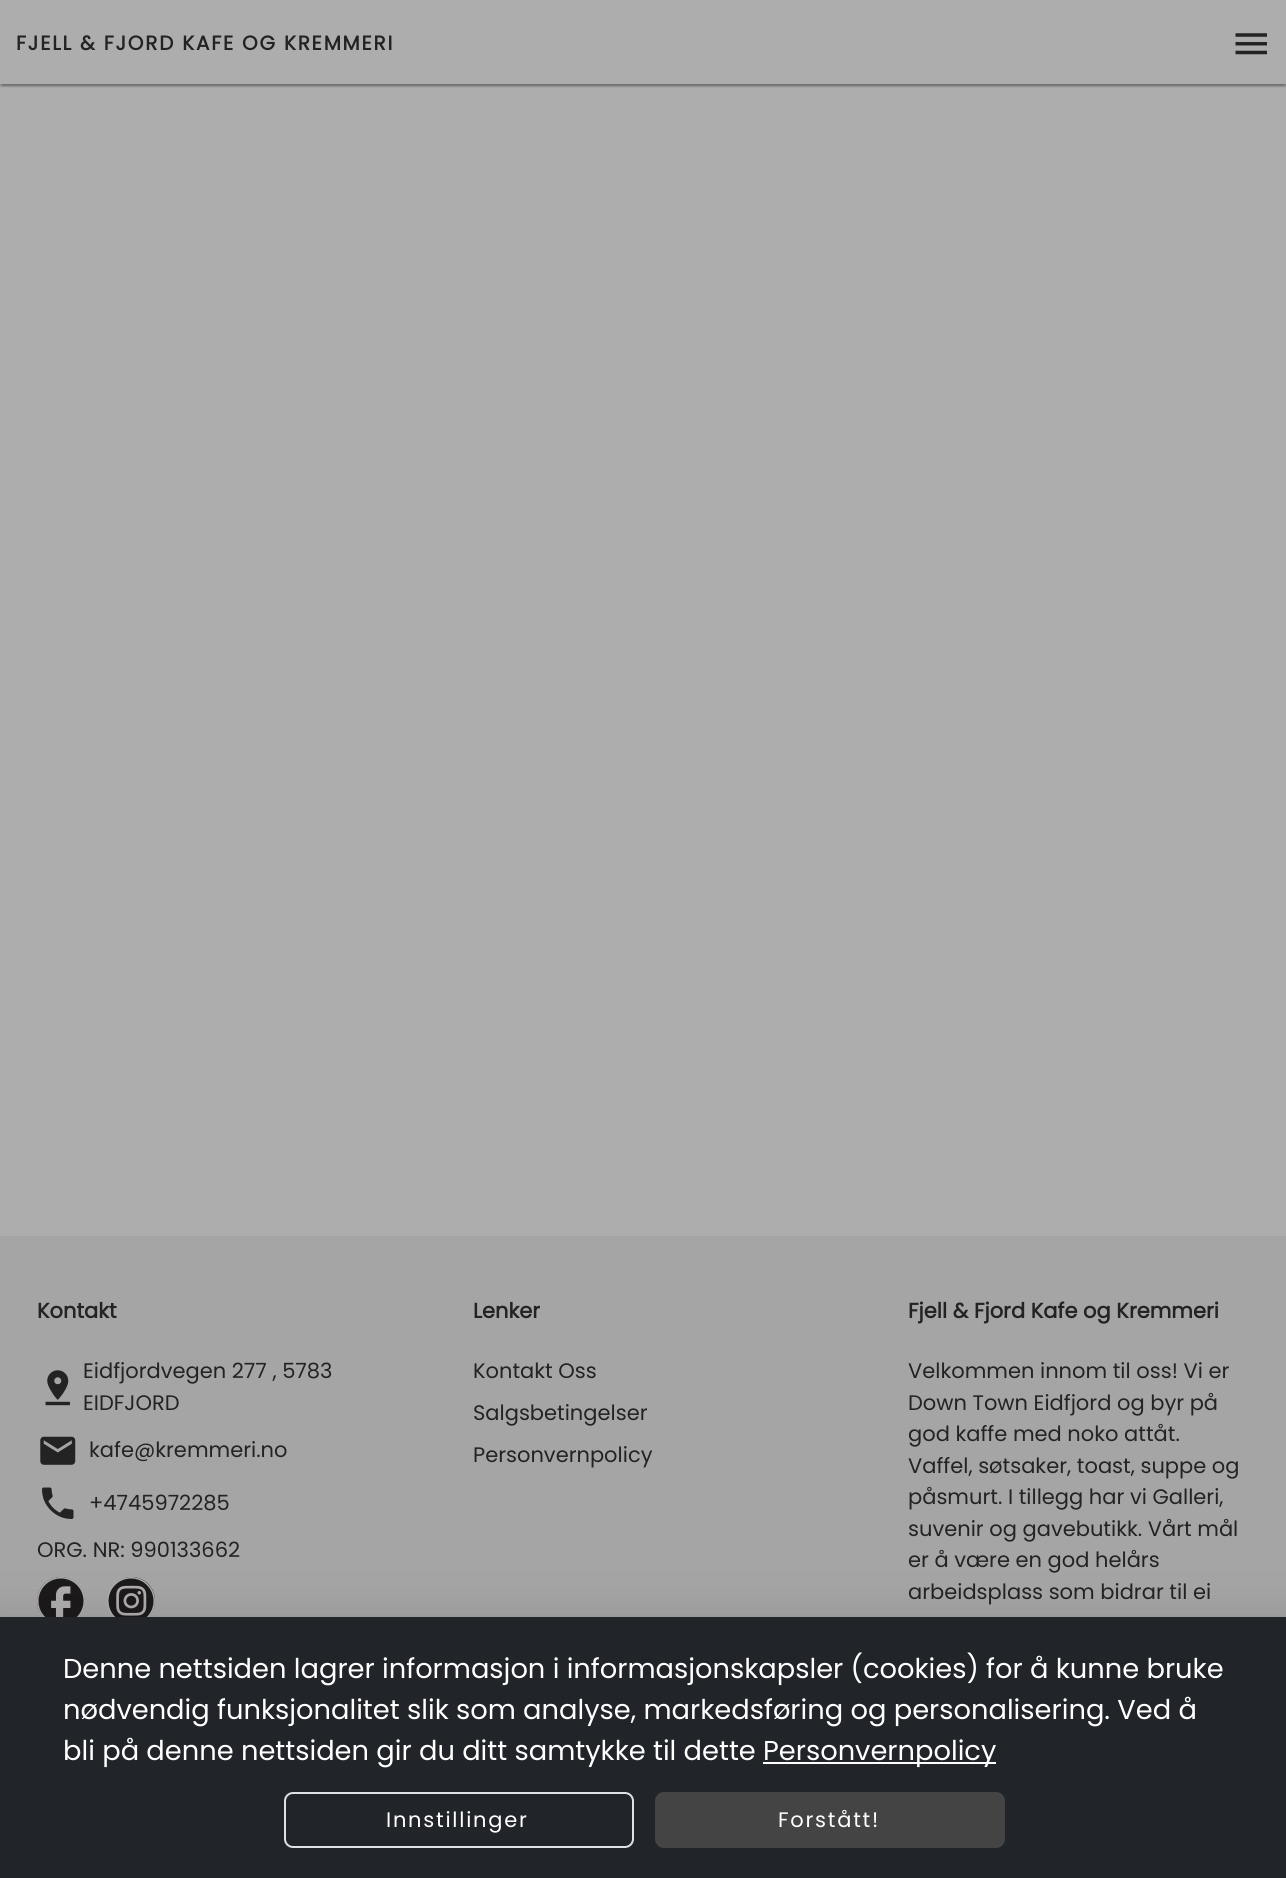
import math
import cairo

surface = cairo.ImageSurface(cairo.Format.RGB24, 1286, 1878)
ctx = cairo.Context(surface)
options = cairo.FontOptions()
options.set_hint_metrics(cairo.HintMetrics.OFF)
options.set_hint_style(cairo.HintStyle.NONE)
ctx.set_font_options(options)
ctx.set_miter_limit(4)


def ink(r, g, b):
    ctx.set_source_rgb(r / 255, g / 255, b / 255)


def write(x, y, s, family, size, color, bold=False, italic=False):
    ctx.select_font_face(family, cairo.FontSlant.ITALIC if italic else cairo.FontSlant.NORMAL, cairo.FontWeight.BOLD if bold else cairo.FontWeight.NORMAL)
    ctx.set_font_size(size)
    ink(*color)
    ctx.move_to(x, y)
    ctx.show_text(s)


def write_spaced(x, y, s, letter, word):
    ctx.move_to(x, y)
    for ch in s:
        ctx.show_text(ch)
        ctx.rel_move_to(letter + word * (ch == ' '), 0)


def block(x, y, w, h, *color):
    ink(*color)
    ctx.rectangle(x, y, w, h)
    ctx.fill()


def round_path(x, y, w, h, r):
    ctx.new_sub_path()
    for i, (u, v) in enumerate([(x + w - r, y + h - r), (x + r, y + h - r), (x + r, y + r), (x + w - r, y + r)]):
        ctx.arc(u, v, r, i * math.pi / 2, (i + 1) * math.pi / 2)
    ctx.close_path()


def blur_box(x, y, w, h, r, blur, alpha):
    ctx.push_group_with_content(cairo.Content.ALPHA)
    ctx.set_operator(cairo.Operator.SOURCE)
    for i in range(15, -16, -2):
        e = blur * i / 6
        if min(w, h) + 2 * e > 0:
            ctx.set_source_rgba(0, 0, 0, alpha * math.erfc((i - 1) / 8.5) / 2)
            round_path(x - e, y - e, w + 2 * e, h + 2 * e, max(0, min(r + e + blur * .6, min(w, h) / 2 + e)))
            ctx.fill()
    ctx.mask(ctx.pop_group())


def paste(path, x, y, w, h):
    ctx.save()
    ctx.set_source_surface(cairo.ImageSurface.create_from_png(path), x, y)
    ctx.rectangle(x, y, w, h)
    ctx.fill()
    ctx.restore()


s1 = dict(family="Poppins", size=21, color=(35, 35, 35), bold=True)
s2 = dict(family="Poppins", size=21, color=(35, 35, 35))
s3 = dict(family="Poppins", size=27.3, color=(255, 255, 255))

ink(173, 173, 173)
ctx.paint()
ctx.save()
ctx.rectangle(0, 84, 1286, 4)
ctx.clip()
ink(0, 0, 0)
blur_box(0, 2, 1286, 84, 0, 2.5, 0.12)
ctx.restore()
ctx.save()
ctx.rectangle(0, 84, 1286, 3)
ctx.clip()
ink(0, 0, 0)
blur_box(0, 2, 1286, 84, 0, 1, 0.14)
ctx.restore()
ctx.save()
ctx.rectangle(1, 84, 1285, 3)
ctx.clip()
ink(0, 0, 0)
blur_box(2, 5, 1283, 81, 0, 1, 0.2)
ctx.restore()
ctx.select_font_face("Poppins", cairo.FontSlant.NORMAL, cairo.FontWeight.BOLD)
ctx.set_font_size(20)
ink(35, 35, 35)
write_spaced(16, 50, "FJELL & FJORD KAFE OG KREMMERI", 1.75, 0)
paste("pic1.png", 1235, 33, 32, 22)
block(0, 1236, 1286, 381, 165, 165, 165)
write(37, 1318, "Kontakt", **s1)
paste("pic2.png", 45, 1370, 25, 36)
write(83, 1378, "Eidfjordvegen 277 , 5783", **s2)
write(83, 1410, "EIDFJORD", **s2)
paste("pic3.png", 40, 1436, 36, 29)
write(89, 1457, "kafe@kremmeri.no", **s2)
paste("pic4.png", 42, 1487, 32, 32)
write(89, 1510, "+4745972285", **s2)
write(37, 1557, "ORG. NR: 990133662", **s2)
paste("pic5.png", 37, 1577, 48, 40)
paste("pic6.png", 107, 1577, 48, 40)
write(473, 1318, "Lenker", **s1)
write(473, 1378, "Kontakt Oss", **s2)
write(473, 1420, "Salgsbetingelser", **s2)
write(473, 1462, "Personvernpolicy", **s2)
write(908, 1318, "Fjell & Fjord Kafe og Kremmeri", **s1)
write(908, 1378, "Velkommen innom til oss! Vi er", **s2)
write(908, 1410, "Down Town Eidfjord og byr på", **s2)
write(908, 1441, "god kaffe med noko attåt.", **s2)
write(908, 1473, "Vaffel, søtsaker, toast, suppe og", **s2)
write(908, 1504, "påsmurt. I tillegg har vi Galleri,", **s2)
write(908, 1536, "suvenir og gavebutikk. Vårt mål", **s2)
write(908, 1567, "er å være en god helårs", **s2)
write(908, 1599, "arbeidsplass som bidrar til ei", **s2)
ink(0, 0, 0)
blur_box(-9, 1619, 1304, 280, 0, 26, 0.12)
block(0, 1617, 1286, 261, 33, 37, 41)
write(63, 1678, "Denne nettsiden lagrer informasjon i informasjonskapsler (cookies) for å kunne bruke", **s3)
write(63, 1719, "nødvendig funksjonalitet slik som analyse, markedsføring og personalisering. Ved å", **s3)
write(63, 1760, "bli på denne nettsiden gir du ditt samtykke til dette", **s3)
block(763, 1762, 233, 2, 255, 255, 255)
write(763, 1760, "Personvernpolicy", **s3)
round_path(285, 1793, 348, 54, 8)
ink(222, 226, 230)
ctx.stroke()
ctx.set_font_size(21)
ink(255, 255, 255)
write_spaced(386, 1827, "Innstillinger", 1.75, 0)
ink(68, 68, 68)
round_path(655, 1792, 350, 56, 9)
ctx.fill()
ink(255, 255, 255)
write_spaced(778, 1827, "Forstått!", 1.75, 0)
surface.write_to_png("screenshot.png")
